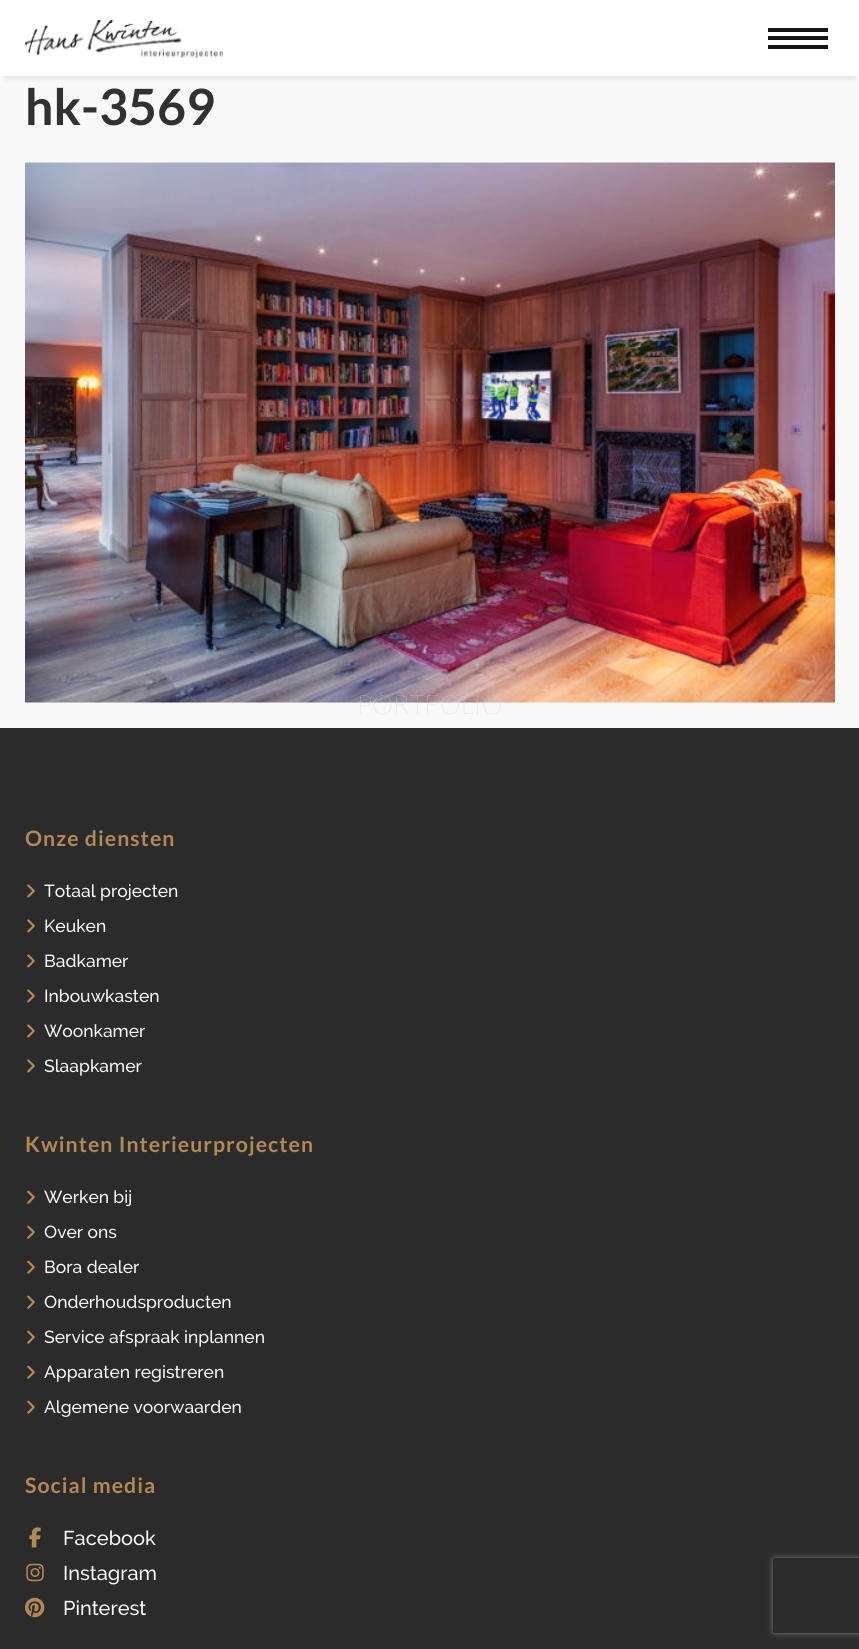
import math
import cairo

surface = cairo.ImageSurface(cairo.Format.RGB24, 859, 1649)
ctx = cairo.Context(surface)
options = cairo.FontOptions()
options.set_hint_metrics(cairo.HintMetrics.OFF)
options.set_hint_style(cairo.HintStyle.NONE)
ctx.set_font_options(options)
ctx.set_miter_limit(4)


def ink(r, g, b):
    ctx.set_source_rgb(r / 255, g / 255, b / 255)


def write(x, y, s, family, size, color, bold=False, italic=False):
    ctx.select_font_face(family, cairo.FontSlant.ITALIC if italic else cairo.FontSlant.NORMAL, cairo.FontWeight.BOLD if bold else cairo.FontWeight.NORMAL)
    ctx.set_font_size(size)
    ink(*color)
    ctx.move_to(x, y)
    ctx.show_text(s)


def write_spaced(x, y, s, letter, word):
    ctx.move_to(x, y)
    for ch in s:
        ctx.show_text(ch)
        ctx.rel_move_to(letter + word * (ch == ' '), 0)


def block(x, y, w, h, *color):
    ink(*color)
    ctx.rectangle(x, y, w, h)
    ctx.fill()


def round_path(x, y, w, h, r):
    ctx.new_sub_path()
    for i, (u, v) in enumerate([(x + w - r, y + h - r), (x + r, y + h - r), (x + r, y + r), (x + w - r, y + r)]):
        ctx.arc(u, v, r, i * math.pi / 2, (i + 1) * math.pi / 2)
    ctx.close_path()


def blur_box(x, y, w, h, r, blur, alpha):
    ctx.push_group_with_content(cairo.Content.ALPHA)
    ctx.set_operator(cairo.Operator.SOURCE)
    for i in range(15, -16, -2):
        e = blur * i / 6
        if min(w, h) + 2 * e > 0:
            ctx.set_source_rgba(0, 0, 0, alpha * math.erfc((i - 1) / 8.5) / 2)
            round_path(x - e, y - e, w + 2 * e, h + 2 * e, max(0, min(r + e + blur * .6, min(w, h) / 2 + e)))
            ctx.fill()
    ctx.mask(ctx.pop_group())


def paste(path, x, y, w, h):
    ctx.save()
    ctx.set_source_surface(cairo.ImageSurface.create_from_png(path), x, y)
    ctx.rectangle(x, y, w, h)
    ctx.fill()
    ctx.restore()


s1 = dict(family="Lato", size=50, color=(49, 49, 49), bold=True)
s2 = dict(family="Lato Thin", size=26.25, color=(215, 205, 210))
s3 = dict(family="Raleway Medium", size=17.5, color=(249, 249, 249))
s4 = dict(family="Raleway Medium", size=20, color=(249, 249, 249))

ink(249, 249, 249)
ctx.paint()
ink(0, 0, 0)
blur_box(5, 11, 850, 67, 0, 3, 0.1)
block(0, 0, 859, 76, 255, 255, 255)
paste("pic1.png", 25, 20, 198, 39)
block(768, 36, 60, 4, 21, 21, 21)
block(768, 28, 60, 4, 21, 21, 21)
block(768, 45, 60, 4, 21, 21, 21)
write(25, 125, "hk-3569", **s1)
paste("pic2.png", 25, 162, 810, 541)
write(357, 714, "PORTFOLIO", **s2)
block(0, 728, 859, 921, 43, 43, 43)
ctx.select_font_face("Lato", cairo.FontSlant.NORMAL, cairo.FontWeight.BOLD)
ctx.set_font_size(21.25)
ink(178, 136, 84)
write_spaced(25, 846, "Onze diensten", 1.05, 0)
paste("pic3.png", 27, 884, 8, 14)
write(44, 897, "Totaal projecten", **s3)
paste("pic3.png", 27, 919, 8, 14)
write(44, 932, "Keuken", **s3)
paste("pic3.png", 27, 954, 8, 14)
write(44, 967, "Badkamer", **s3)
paste("pic3.png", 27, 989, 8, 14)
write(44, 1002, "Inbouwkasten", **s3)
paste("pic3.png", 27, 1024, 8, 14)
write(44, 1037, "Woonkamer", **s3)
paste("pic3.png", 27, 1059, 8, 14)
write(44, 1072, "Slaapkamer", **s3)
ctx.select_font_face("Lato", cairo.FontSlant.NORMAL, cairo.FontWeight.BOLD)
ctx.set_font_size(21.25)
ink(178, 136, 84)
write_spaced(25, 1152, "Kwinten Interieurprojecten", 1.05, 0)
paste("pic4.png", 27, 1190, 8, 14)
write(44, 1203, "Werken bij", **s3)
paste("pic4.png", 27, 1225, 8, 14)
write(44, 1238, "Over ons", **s3)
paste("pic4.png", 27, 1260, 8, 14)
write(44, 1273, "Bora dealer", **s3)
paste("pic4.png", 27, 1295, 8, 14)
write(44, 1308, "Onderhoudsproducten", **s3)
paste("pic4.png", 27, 1330, 8, 14)
write(44, 1343, "Service afspraak inplannen", **s3)
paste("pic4.png", 27, 1365, 8, 14)
write(44, 1378, "Apparaten registreren", **s3)
paste("pic4.png", 27, 1400, 8, 14)
write(44, 1413, "Algemene voorwaarden", **s3)
ctx.select_font_face("Lato", cairo.FontSlant.NORMAL, cairo.FontWeight.BOLD)
ctx.set_font_size(21.25)
ink(178, 136, 84)
write_spaced(25, 1493, "Social media", 1.05, 0)
paste("pic5.png", 29, 1527, 12, 21)
write(63, 1545, "Facebook", **s4)
paste("pic6.png", 26, 1563, 18, 19)
write(63, 1580, "Instagram", **s4)
paste("pic7.png", 25, 1597, 20, 21)
write(63, 1615, "Pinterest", **s4)
ctx.save()
ctx.set_fill_rule(cairo.FillRule.EVEN_ODD)
ctx.new_path()
ctx.move_to(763, 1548)
ctx.line_to(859, 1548)
ctx.line_to(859, 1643)
ctx.line_to(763, 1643)
ctx.close_path()
ctx.move_to(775.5, 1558)
ctx.line_to(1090.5, 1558)
ctx.curve_to(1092, 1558, 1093, 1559, 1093, 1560.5)
ctx.line_to(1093, 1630.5)
ctx.curve_to(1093, 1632, 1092, 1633, 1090.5, 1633)
ctx.line_to(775.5, 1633)
ctx.curve_to(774, 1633, 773, 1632, 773, 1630.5)
ctx.line_to(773, 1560.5)
ctx.curve_to(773, 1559, 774, 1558, 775.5, 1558)
ctx.close_path()
ctx.clip()
ink(128, 128, 128)
blur_box(773, 1558, 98, 75, 2.5, 3, 1)
ctx.restore()
surface.write_to_png("screenshot.png")
